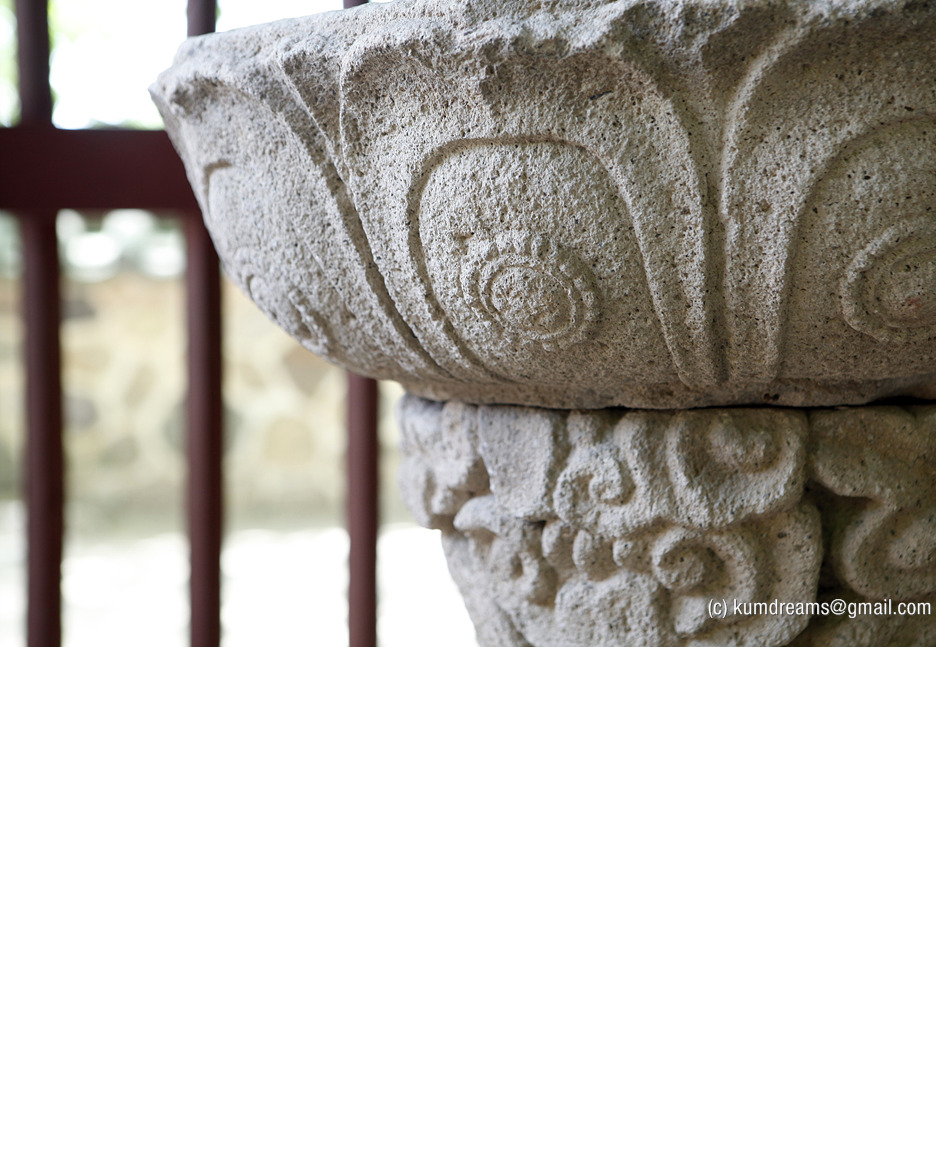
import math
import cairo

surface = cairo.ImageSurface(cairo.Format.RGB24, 936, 1159)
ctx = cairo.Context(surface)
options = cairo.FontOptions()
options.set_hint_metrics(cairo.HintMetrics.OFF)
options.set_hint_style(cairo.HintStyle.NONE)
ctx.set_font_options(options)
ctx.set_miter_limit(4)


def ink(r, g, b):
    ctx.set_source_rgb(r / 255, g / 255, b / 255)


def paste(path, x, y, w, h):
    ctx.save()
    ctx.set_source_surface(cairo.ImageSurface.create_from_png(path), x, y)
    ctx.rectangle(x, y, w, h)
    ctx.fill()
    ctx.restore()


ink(255, 255, 255)
ctx.paint()
paste("pic1.png", 0, 0, 936, 647)
surface.write_to_png("screenshot.png")
